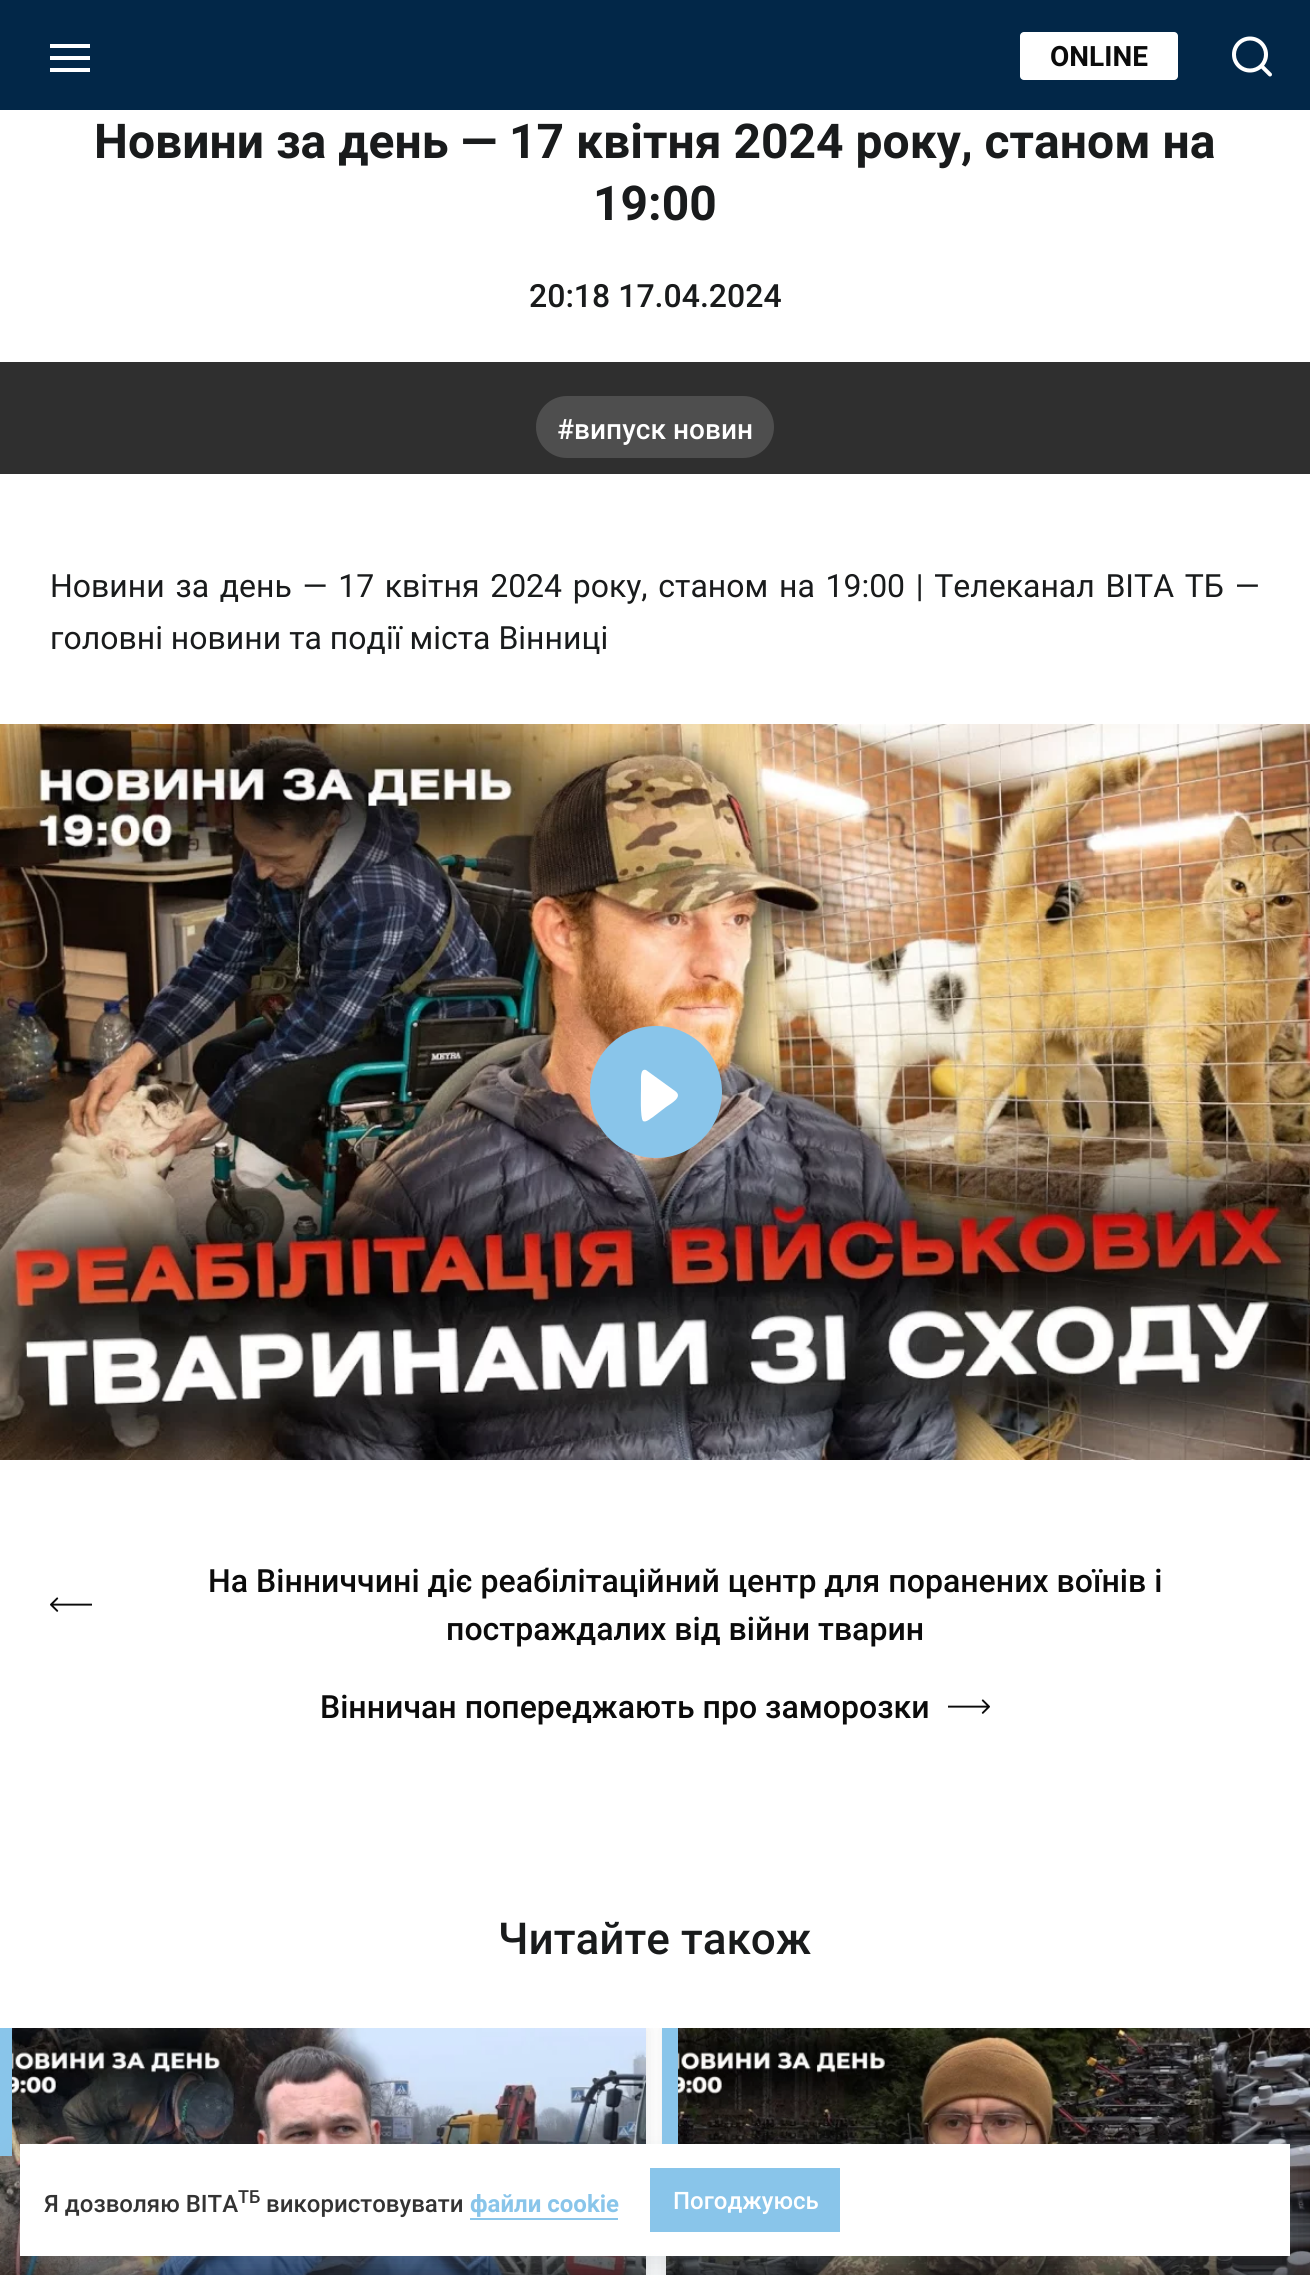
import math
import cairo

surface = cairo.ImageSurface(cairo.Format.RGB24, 1310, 2275)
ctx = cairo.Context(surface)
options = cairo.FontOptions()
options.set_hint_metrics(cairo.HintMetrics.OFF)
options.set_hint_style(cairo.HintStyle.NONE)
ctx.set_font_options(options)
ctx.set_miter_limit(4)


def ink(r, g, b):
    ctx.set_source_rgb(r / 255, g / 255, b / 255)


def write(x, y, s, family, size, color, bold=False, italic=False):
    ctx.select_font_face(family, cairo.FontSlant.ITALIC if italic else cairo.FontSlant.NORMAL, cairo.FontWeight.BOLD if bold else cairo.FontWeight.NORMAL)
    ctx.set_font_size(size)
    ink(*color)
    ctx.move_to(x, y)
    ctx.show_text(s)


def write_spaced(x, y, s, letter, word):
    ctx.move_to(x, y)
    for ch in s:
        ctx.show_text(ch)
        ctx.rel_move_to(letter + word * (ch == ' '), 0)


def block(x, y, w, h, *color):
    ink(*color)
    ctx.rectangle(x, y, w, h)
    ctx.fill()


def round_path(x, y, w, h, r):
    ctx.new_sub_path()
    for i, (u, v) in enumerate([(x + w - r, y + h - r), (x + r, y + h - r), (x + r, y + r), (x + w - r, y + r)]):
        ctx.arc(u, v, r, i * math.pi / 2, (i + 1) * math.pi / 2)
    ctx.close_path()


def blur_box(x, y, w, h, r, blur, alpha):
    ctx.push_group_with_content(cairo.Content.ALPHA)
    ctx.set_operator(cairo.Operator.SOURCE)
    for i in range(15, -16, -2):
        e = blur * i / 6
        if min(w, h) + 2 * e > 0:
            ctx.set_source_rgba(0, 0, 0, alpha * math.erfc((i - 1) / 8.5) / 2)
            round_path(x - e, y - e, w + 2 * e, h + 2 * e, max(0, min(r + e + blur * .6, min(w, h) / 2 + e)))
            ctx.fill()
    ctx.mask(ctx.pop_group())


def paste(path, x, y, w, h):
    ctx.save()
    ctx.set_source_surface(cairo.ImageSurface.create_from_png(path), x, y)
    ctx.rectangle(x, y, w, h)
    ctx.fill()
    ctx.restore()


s1 = dict(family="Roboto", size=28, color=(11, 11, 11), bold=True)
s2 = dict(family="Roboto", size=48, color=(25, 27, 28), bold=True)
s3 = dict(family="Roboto Medium", size=32, color=(25, 27, 28))
s4 = dict(family="Roboto Medium", size=28, color=(255, 255, 255))
s5 = dict(family="Roboto", size=32, color=(25, 27, 28))
s6 = dict(family="Roboto Medium", size=32, color=(11, 11, 11))
s7 = dict(family="Roboto Medium", size=44, color=(25, 27, 28))
s8 = dict(family="Roboto Medium", size=24, color=(51, 51, 51))
s9 = dict(family="Roboto Medium", size=18, color=(51, 51, 51))
s10 = dict(family="Roboto", size=24, color=(137, 197, 234), bold=True)
s11 = dict(family="Roboto Medium", size=24, color=(255, 255, 255))

ink(255, 255, 255)
ctx.paint()
block(0, 0, 1310, 110, 2, 39, 72)
block(50, 56, 40, 4, 255, 255, 255)
block(50, 44, 40, 4, 255, 255, 255)
block(50, 68, 40, 4, 255, 255, 255)
round_path(1020, 32, 158, 48, 4)
ctx.fill()
write(1050, 66, "ONLINE", **s1)
paste("pic1.png", 1232, 36, 40, 41)
write(94, 158, "Новини за день — 17 квітня 2024 року, станом на", **s2)
write(593, 220, "19:00", **s2)
write(529, 307, "20:18 17.04.2024", **s3)
block(0, 362, 1310, 112, 47, 47, 47)
ink(78, 78, 78)
round_path(536, 396, 238, 62, 31)
ctx.fill()
write(557, 439, "#випуск новин", **s4)
ctx.select_font_face("Roboto")
ctx.set_font_size(32)
ink(25, 27, 28)
write_spaced(50, 597, "Новини за день — 17 квітня 2024 року, станом на 19:00 | Телеканал ВІТА ТБ —", 0, 2.75)
write(50, 649, "головні новини та події міста Вінниці", **s5)
paste("pic2.png", 0, 724, 1310, 736)
ink(137, 197, 234)
ctx.arc(656, 1092, 66, 0, 2 * math.pi)
ctx.fill()
ink(255, 255, 255)
ctx.new_path()
ctx.move_to(675, 1091)
ctx.line_to(646, 1070)
ctx.curve_to(640, 1068, 641, 1079, 641, 1082)
ctx.line_to(641, 1089)
ctx.curve_to(641, 1093, 640, 1118, 643, 1121)
ctx.curve_to(646, 1123, 651, 1118, 653, 1117)
ctx.line_to(666, 1107)
ctx.curve_to(670, 1104, 684, 1097, 675, 1091)
ctx.close_path()
ctx.fill()
write(208, 1592, "На Вінниччині діє реабілітаційний центр для поранених воїнів і", **s6)
paste("pic3.png", 50, 1597, 42, 15)
write(446, 1640, "постраждалих від війни тварин", **s6)
write(320, 1718, "Вінничан попереджають про заморозки", **s6)
paste("pic4.png", 948, 1699, 42, 15)
write(498, 1954, "Читайте також", **s7)
ctx.save()
ctx.rectangle(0, 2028, 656, 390)
ctx.clip()
ink(0, 0, 0)
blur_box(0, 2028, 646, 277, 0, 10, 0.1)
ctx.restore()
paste("pic5.png", 0, 2028, 646, 247)
block(0, 2028, 12, 128, 137, 197, 234)
ctx.save()
ctx.rectangle(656, 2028, 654, 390)
ctx.clip()
ink(0, 0, 0)
blur_box(666, 2028, 644, 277, 0, 10, 0.1)
ctx.restore()
paste("pic6.png", 666, 2028, 644, 247)
block(662, 2028, 16, 116, 137, 197, 234)
ink(145, 158, 171)
blur_box(20, 2160, 1270, 112, 0, 16, 0.24)
block(20, 2144, 1270, 112, 255, 255, 255)
write(44, 2212, "Я дозволяю ВІТА", **s8)
write(238, 2203, "ТБ", **s9)
write(266, 2212, "використовувати", **s8)
write(470, 2212, "файли cookie", **s10)
block(470, 2218, 148, 2, 137, 197, 234)
ctx.rectangle(651, 2169, 188, 62)
ctx.stroke()
block(652, 2170, 186, 60, 137, 197, 234)
write(673, 2209, "Погоджуюсь", **s11)
surface.write_to_png("screenshot.png")
